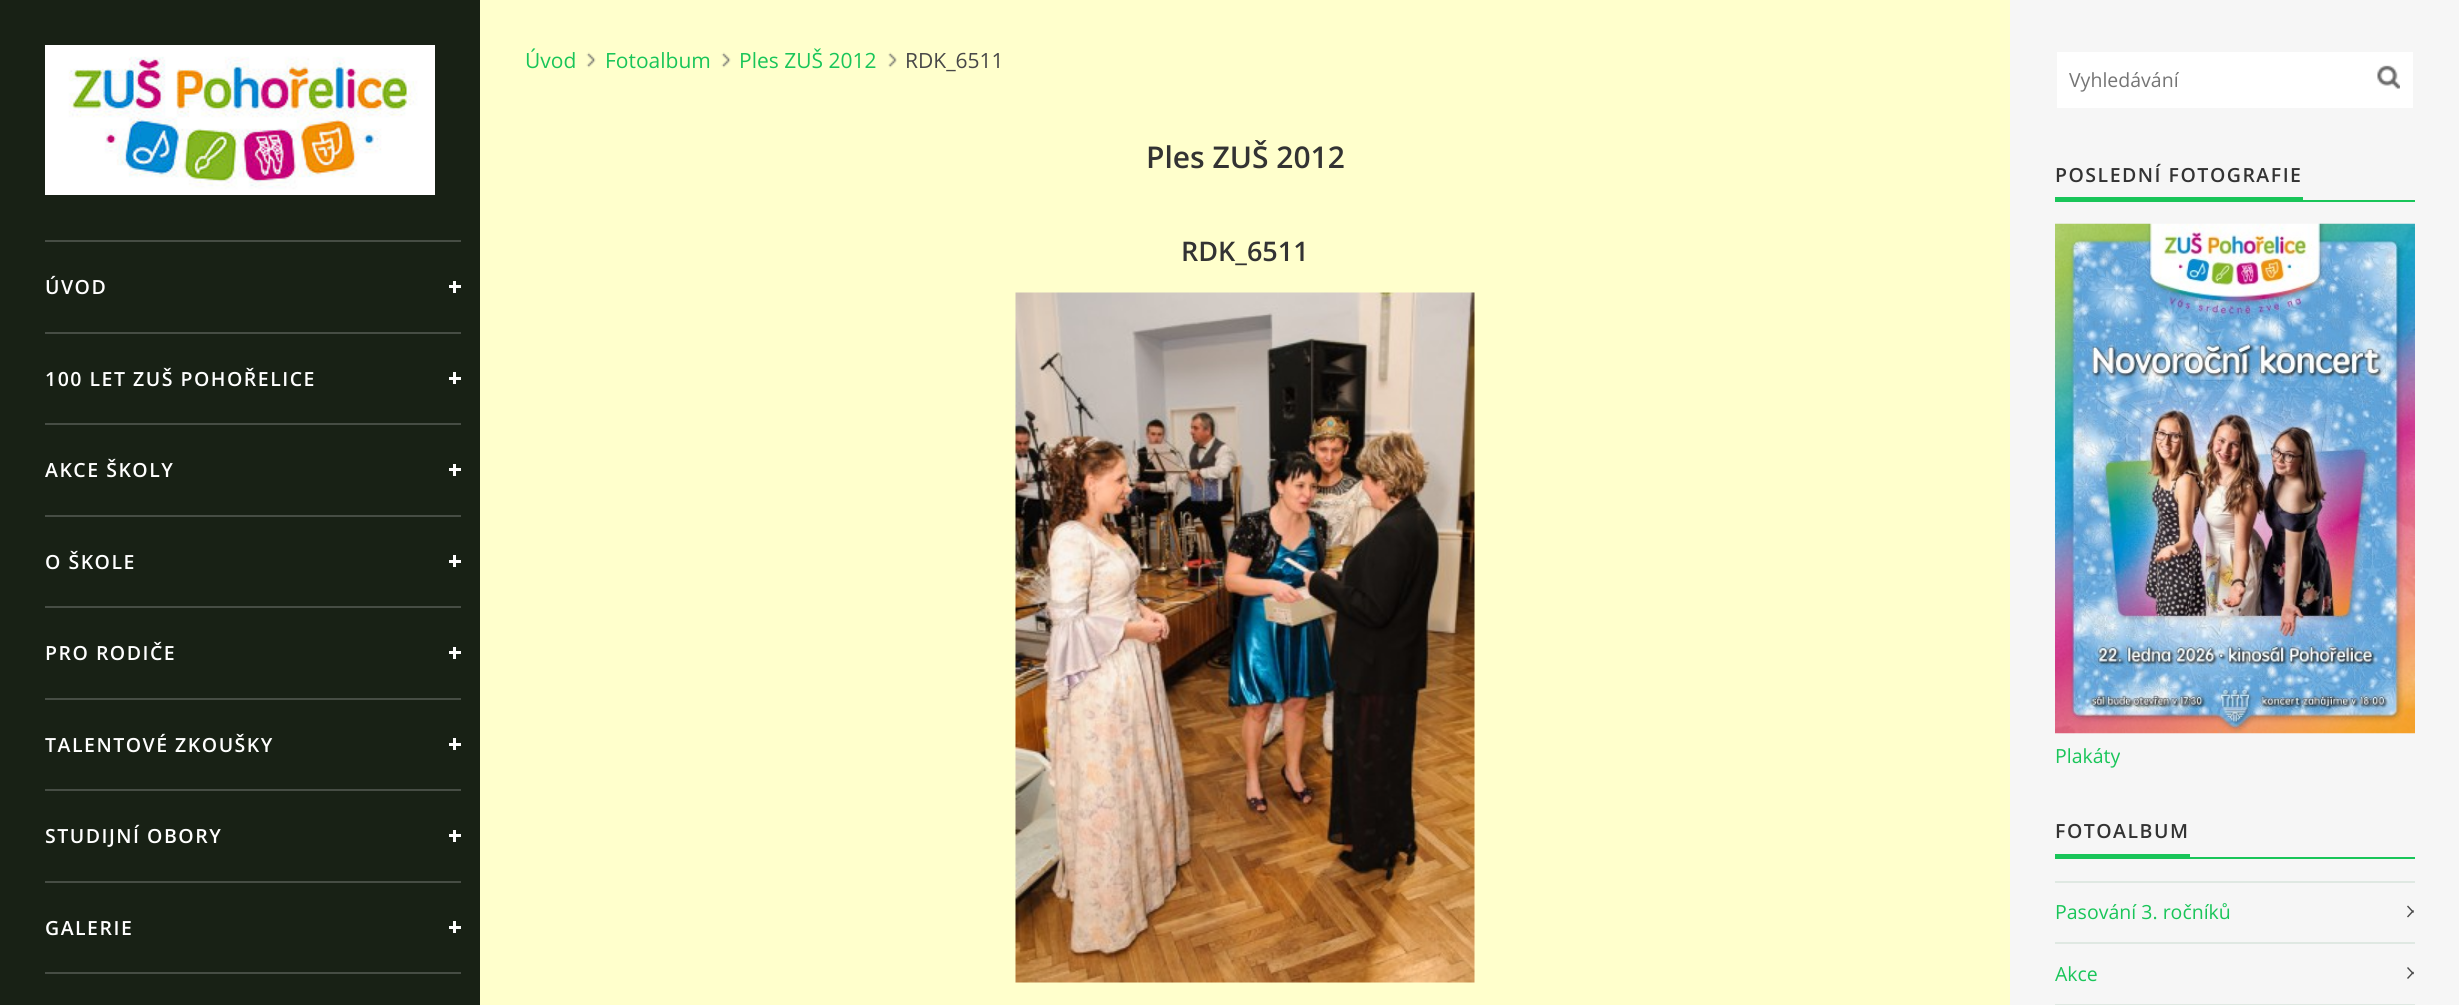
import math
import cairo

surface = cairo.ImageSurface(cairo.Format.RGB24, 2459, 1005)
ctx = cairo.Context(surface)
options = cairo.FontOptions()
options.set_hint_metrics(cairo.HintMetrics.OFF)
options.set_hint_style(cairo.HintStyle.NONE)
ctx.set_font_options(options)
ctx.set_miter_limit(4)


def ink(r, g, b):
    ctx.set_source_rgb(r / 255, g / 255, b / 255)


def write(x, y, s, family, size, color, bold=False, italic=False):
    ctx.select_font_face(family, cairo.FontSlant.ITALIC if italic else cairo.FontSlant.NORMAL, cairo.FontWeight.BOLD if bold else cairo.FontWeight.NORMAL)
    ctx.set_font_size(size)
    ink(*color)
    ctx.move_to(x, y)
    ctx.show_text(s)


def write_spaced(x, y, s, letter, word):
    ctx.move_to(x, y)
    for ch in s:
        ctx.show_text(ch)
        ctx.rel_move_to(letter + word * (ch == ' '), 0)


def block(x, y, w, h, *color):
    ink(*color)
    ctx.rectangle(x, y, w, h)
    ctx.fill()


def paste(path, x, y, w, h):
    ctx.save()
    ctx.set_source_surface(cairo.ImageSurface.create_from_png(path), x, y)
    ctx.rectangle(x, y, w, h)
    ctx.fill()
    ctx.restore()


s1 = dict(family="Open Sans", size=21, color=(25, 197, 89))
s2 = dict(family="Open Sans", size=21, color=(72, 72, 72))
s3 = dict(family="Open Sans SemiBold", size=30, color=(51, 51, 51))
s4 = dict(family="Open Sans SemiBold", size=27, color=(51, 51, 51))
s5 = dict(family="Open Sans", size=19.5, color=(117, 117, 117))
s6 = dict(family="Open Sans", size=19.5, color=(25, 197, 89))

ink(24, 33, 21)
ctx.paint()
paste("pic1.png", 45, 45, 390, 150)
block(45, 240, 416, 2, 70, 77, 68)
ctx.select_font_face("Open Sans SemiBold")
ctx.set_font_size(19.5)
ink(255, 255, 255)
write_spaced(45, 294, "ÚVOD", 1.5, 0)
block(449, 285, 12, 3, 255, 255, 255)
block(453, 281, 3, 12, 255, 255, 255)
block(45, 332, 416, 2, 70, 77, 68)
ink(255, 255, 255)
write_spaced(45, 386, "100 LET ZUŠ POHOŘELICE", 1.5, 0)
block(449, 377, 12, 3, 255, 255, 255)
block(453, 372, 3, 12, 255, 255, 255)
block(45, 423, 416, 2, 70, 77, 68)
ink(255, 255, 255)
write_spaced(45, 477, "AKCE ŠKOLY", 1.5, 0)
block(449, 468, 12, 3, 255, 255, 255)
block(453, 464, 3, 12, 255, 255, 255)
block(45, 515, 416, 2, 70, 77, 68)
ink(255, 255, 255)
write_spaced(45, 569, "O ŠKOLE", 1.5, 0)
block(449, 560, 12, 3, 255, 255, 255)
block(453, 555, 3, 12, 255, 255, 255)
block(45, 606, 416, 2, 70, 77, 68)
ink(255, 255, 255)
write_spaced(45, 660, "PRO RODIČE", 1.5, 0)
block(449, 651, 12, 3, 255, 255, 255)
block(453, 647, 3, 12, 255, 255, 255)
block(45, 698, 416, 2, 70, 77, 68)
ink(255, 255, 255)
write_spaced(45, 752, "TALENTOVÉ ZKOUŠKY", 1.5, 0)
block(449, 743, 12, 3, 255, 255, 255)
block(453, 738, 3, 12, 255, 255, 255)
block(45, 789, 416, 2, 70, 77, 68)
ink(255, 255, 255)
write_spaced(45, 843, "STUDIJNÍ OBORY", 1.5, 0)
block(449, 834, 12, 3, 255, 255, 255)
block(453, 830, 3, 12, 255, 255, 255)
block(45, 881, 416, 2, 70, 77, 68)
ink(255, 255, 255)
write_spaced(45, 935, "GALERIE", 1.5, 0)
block(449, 926, 12, 3, 255, 255, 255)
block(453, 921, 3, 12, 255, 255, 255)
block(45, 972, 416, 2, 70, 77, 68)
block(480, 0, 1530, 1005, 255, 255, 204)
paste("pic2.png", 586, 52, 10, 16)
write(525, 68, "Úvod", **s1)
paste("pic2.png", 721, 52, 10, 16)
write(605, 68, "Fotoalbum", **s1)
paste("pic3.png", 888, 52, 9, 16)
write(739, 68, "Ples ZUŠ 2012", **s1)
write(905, 68, "RDK_6511", **s2)
write(1146, 168, "Ples ZUŠ 2012", **s3)
write(1181, 261, "RDK_6511", **s4)
paste("pic4.png", 1015, 292, 460, 691)
block(2010, 0, 449, 1005, 246, 246, 246)
block(2057, 52, 356, 56, 255, 255, 255)
write(2069, 87, "Vyhledávání", **s5)
paste("pic5.png", 2377, 65, 23, 24)
ctx.select_font_face("Open Sans SemiBold")
ink(51, 51, 51)
write_spaced(2055, 182, "POSLEDNÍ FOTOGRAFIE", 1.5, 0)
block(2055, 197, 248, 3, 25, 197, 89)
block(2055, 200, 360, 2, 25, 197, 89)
paste("pic6.png", 2055, 223, 360, 511)
write(2055, 763, "Plakáty", **s6)
ctx.select_font_face("Open Sans SemiBold")
ink(51, 51, 51)
write_spaced(2055, 838, "FOTOALBUM", 1.5, 0)
block(2055, 854, 135, 3, 25, 197, 89)
block(2055, 857, 360, 2, 25, 197, 89)
block(2055, 881, 360, 2, 223, 232, 226)
block(2055, 942, 360, 2, 223, 232, 226)
write(2055, 919, "Pasování 3. ročníků", **s6)
ink(72, 72, 72)
ctx.new_path()
ctx.move_to(2408, 905.5)
ctx.line_to(2414, 912)
ctx.line_to(2413, 913)
ctx.line_to(2407, 906.5)
ctx.close_path()
ctx.fill()
ctx.new_path()
ctx.move_to(2407, 916.5)
ctx.line_to(2413, 910)
ctx.line_to(2414, 911)
ctx.line_to(2408, 917.5)
ctx.close_path()
ctx.fill()
block(2055, 1004, 360, 1, 223, 232, 226)
write(2055, 981, "Akce", **s6)
ink(72, 72, 72)
ctx.new_path()
ctx.move_to(2408, 967)
ctx.line_to(2414, 973.5)
ctx.line_to(2413, 974.5)
ctx.line_to(2407, 968)
ctx.close_path()
ctx.fill()
ctx.new_path()
ctx.move_to(2407, 978)
ctx.line_to(2413, 971.5)
ctx.line_to(2414, 972.5)
ctx.line_to(2408, 979)
ctx.close_path()
ctx.fill()
surface.write_to_png("screenshot.png")
